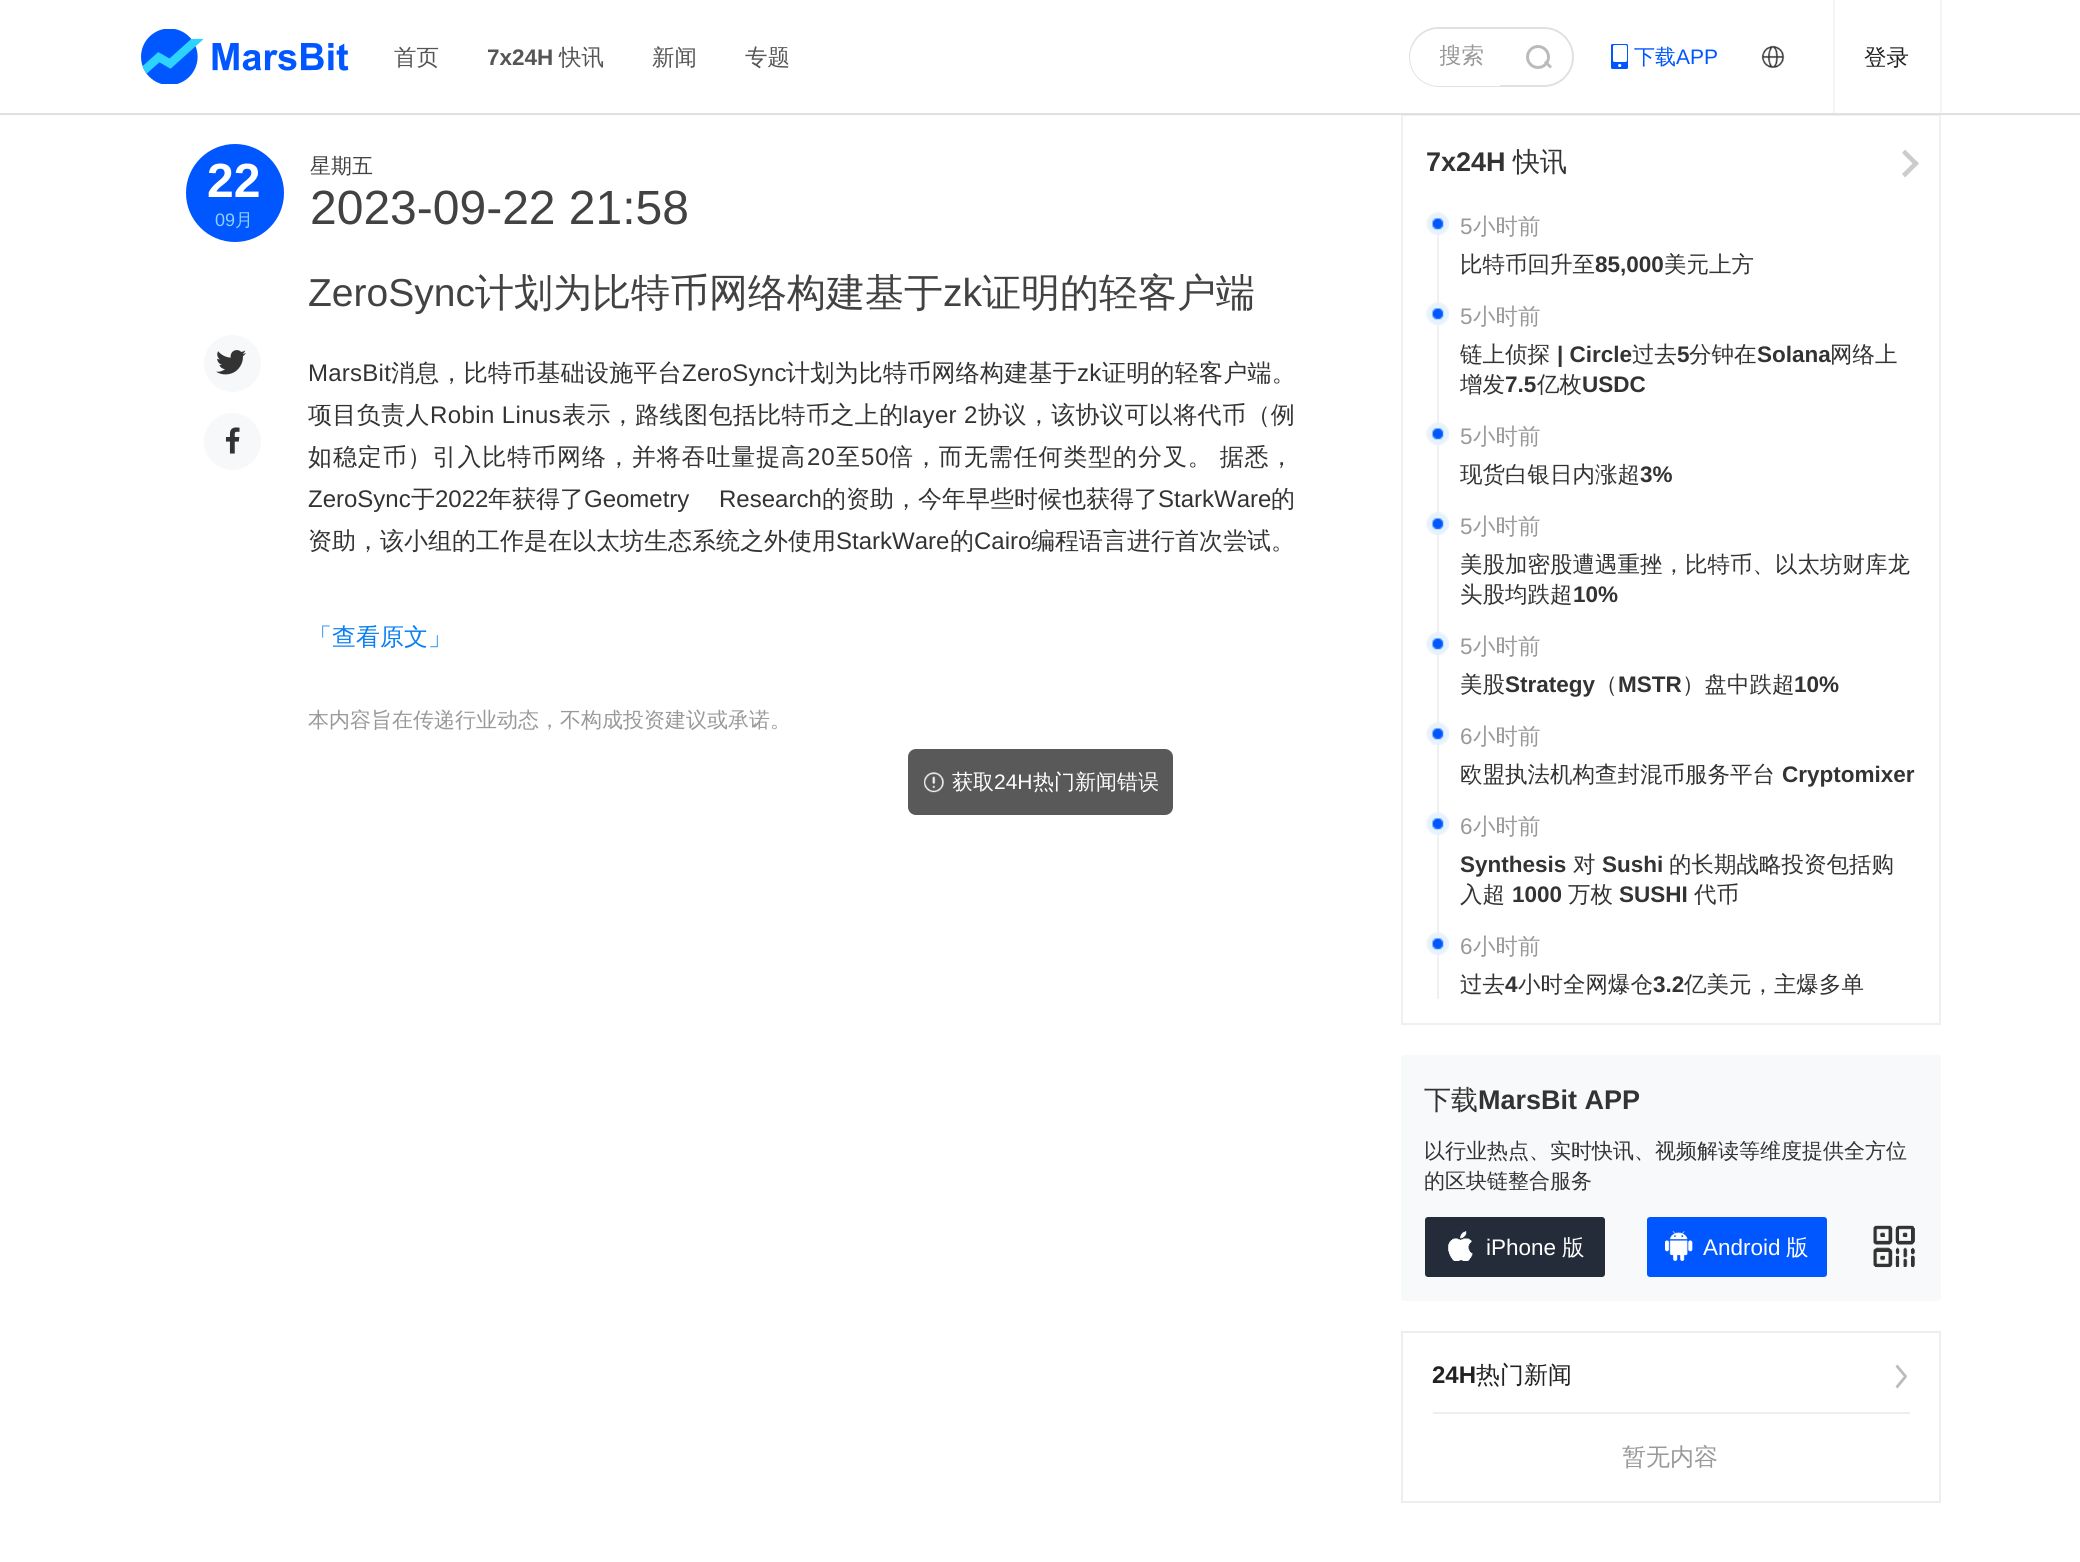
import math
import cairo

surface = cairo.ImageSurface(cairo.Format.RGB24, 2080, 1562)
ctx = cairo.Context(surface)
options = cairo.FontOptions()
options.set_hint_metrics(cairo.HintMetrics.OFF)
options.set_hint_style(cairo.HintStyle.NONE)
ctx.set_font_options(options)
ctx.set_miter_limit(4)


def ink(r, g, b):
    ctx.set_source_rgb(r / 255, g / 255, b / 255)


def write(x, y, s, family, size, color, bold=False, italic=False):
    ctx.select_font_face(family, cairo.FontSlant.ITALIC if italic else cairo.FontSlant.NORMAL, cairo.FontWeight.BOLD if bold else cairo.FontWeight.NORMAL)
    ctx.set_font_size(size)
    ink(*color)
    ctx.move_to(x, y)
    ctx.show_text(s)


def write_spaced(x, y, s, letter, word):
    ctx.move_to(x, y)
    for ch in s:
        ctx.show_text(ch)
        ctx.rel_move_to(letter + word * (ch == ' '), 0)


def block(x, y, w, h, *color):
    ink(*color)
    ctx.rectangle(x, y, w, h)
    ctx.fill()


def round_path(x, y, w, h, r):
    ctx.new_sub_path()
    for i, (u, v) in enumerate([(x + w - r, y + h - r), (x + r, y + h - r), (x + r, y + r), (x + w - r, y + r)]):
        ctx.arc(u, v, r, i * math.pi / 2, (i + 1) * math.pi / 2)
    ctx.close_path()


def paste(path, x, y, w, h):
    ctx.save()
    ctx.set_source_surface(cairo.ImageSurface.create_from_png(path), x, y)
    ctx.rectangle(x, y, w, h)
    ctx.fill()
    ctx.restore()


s1 = dict(family="WenQuanYi Zen Hei Medium", size=22.5, color=(85, 85, 85))
s2 = dict(family="Liberation Sans", size=22.5, color=(85, 85, 85), bold=True)
s3 = dict(family="WenQuanYi Zen Hei Medium", size=22.5, color=(153, 153, 153))
s4 = dict(family="WenQuanYi Zen Hei Medium", size=21, color=(0, 86, 255))
s5 = dict(family="Liberation Sans", size=21, color=(0, 86, 255))
s6 = dict(family="WenQuanYi Zen Hei Medium", size=22.5, color=(34, 34, 34))
s7 = dict(family="Liberation Sans", size=48, color=(255, 255, 255), bold=True)
s8 = dict(family="Liberation Sans", size=18, color=(142, 208, 255))
s9 = dict(family="WenQuanYi Zen Hei Medium", size=18, color=(142, 208, 255))
s10 = dict(family="WenQuanYi Zen Hei Medium", size=21, color=(66, 66, 66))
s11 = dict(family="Liberation Sans", size=48, color=(66, 66, 66))
s12 = dict(family="Liberation Sans", size=39, color=(66, 66, 66))
s13 = dict(family="WenQuanYi Zen Hei Medium", size=39, color=(66, 66, 66))
s14 = dict(family="Liberation Sans", size=24, color=(51, 51, 51))
s15 = dict(family="WenQuanYi Zen Hei Medium", size=24, color=(51, 51, 51))
s16 = dict(family="WenQuanYi Zen Hei Medium", size=24, color=(10, 127, 242))
s17 = dict(family="WenQuanYi Zen Hei Medium", size=21, color=(153, 153, 153))
s18 = dict(family="Liberation Sans", size=27, color=(51, 51, 51), bold=True)
s19 = dict(family="WenQuanYi Zen Hei Medium", size=27, color=(51, 51, 51))
s20 = dict(family="Liberation Sans", size=22.5, color=(153, 153, 153))
s21 = dict(family="WenQuanYi Zen Hei Medium", size=22.5, color=(51, 51, 51))
s22 = dict(family="Liberation Sans", size=22.5, color=(51, 51, 51), bold=True)
s23 = dict(family="WenQuanYi Zen Hei Medium", size=21, color=(51, 51, 51))
s24 = dict(family="Liberation Sans", size=22.5, color=(255, 255, 255))
s25 = dict(family="WenQuanYi Zen Hei Medium", size=22.5, color=(255, 255, 255))
s26 = dict(family="Liberation Sans", size=24, color=(34, 34, 34), bold=True)
s27 = dict(family="WenQuanYi Zen Hei Medium", size=24, color=(34, 34, 34))
s28 = dict(family="WenQuanYi Zen Hei Medium", size=24, color=(153, 153, 153))
s29 = dict(family="WenQuanYi Zen Hei Medium", size=21, color=(255, 255, 255))
s30 = dict(family="Liberation Sans", size=21, color=(255, 255, 255))

ink(255, 255, 255)
ctx.paint()
ctx.rectangle(1402, 115, 538, 909)
ink(240, 240, 240)
ctx.stroke()
block(0, 113, 2080, 2, 224, 224, 224)
paste("pic1.png", 141, 29, 208, 55)
write(394, 65, "首页", **s1)
write(487, 65, "7x24H", **s2)
write(559, 65, "快讯", **s1)
write(652, 65, "新闻", **s1)
write(745, 65, "专题", **s1)
round_path(1410, 28, 163, 58, 29)
ink(225, 225, 225)
ctx.stroke()
ink(255, 255, 255)
ctx.new_path()
ctx.move_to(1438.5, 29)
ctx.line_to(1500, 29)
ctx.line_to(1500, 86)
ctx.line_to(1438.5, 86)
ctx.curve_to(1423, 86, 1410, 73, 1410, 57.5)
ctx.curve_to(1410, 42, 1423, 29, 1438.5, 29)
ctx.close_path()
ctx.fill()
ctx.save()
ctx.rectangle(1440, 42, 60, 29)
ctx.clip()
write(1439, 63, "搜索", **s3)
ctx.restore()
ctx.new_path()
ctx.arc(1538, 57, 10.5, 0, 2 * math.pi)
ink(187, 187, 187)
ctx.set_line_width(3)
ctx.stroke()
ctx.new_path()
ctx.move_to(1544, 62.5)
ctx.line_to(1546, 60.5)
ctx.line_to(1552, 66.5)
ctx.line_to(1550, 68.5)
ctx.close_path()
ctx.fill()
ink(0, 86, 255)
round_path(1611, 44, 17, 25, 1.5)
ctx.fill()
ink(255, 255, 255)
round_path(1613, 45, 14, 17, 1.5)
ctx.fill()
ctx.arc(1619.7, 65.5, 1.6, 0, 2 * math.pi)
ctx.fill()
write(1634, 64, "下载", **s4)
write(1676, 64, "APP", **s5)
paste("pic2.png", 1761, 45, 24, 24)
block(1940, 0, 2, 113, 245, 245, 245)
block(1833, 0, 2, 113, 245, 245, 245)
write(1864, 65, "登录", **s6)
ink(0, 86, 255)
ctx.new_path()
ctx.arc(235, 193, 49, 0, 2 * math.pi)
ctx.fill()
write(207, 197, "22", **s7)
write(215, 226, "09", **s8)
write(235, 226, "月", **s9)
write(310, 173, "星期五", **s10)
write(310, 224, "2023-09-22 21:58", **s11)
ink(247, 248, 249)
ctx.new_path()
ctx.arc(232.5, 363.5, 28.5, 0, 2 * math.pi)
ctx.fill()
paste("pic3.png", 216, 350, 30, 25)
ctx.arc(232.5, 441.5, 28.5, 0, 2 * math.pi)
ctx.fill()
paste("pic4.png", 225, 427, 15, 27)
write(308, 306, "ZeroSync", **s12)
write(475, 306, "计划为比特币网络构建基于", **s13)
write(943, 306, "zk", **s12)
write(982, 306, "证明的轻客户端", **s13)
ctx.select_font_face("Liberation Sans")
ctx.set_font_size(24)
ink(51, 51, 51)
write_spaced(308, 381, "MarsBit", 0.25, 0)
ctx.select_font_face("WenQuanYi Zen Hei Medium")
write_spaced(391, 381, "消息，比特币基础设施平台", 0.25, 0)
ctx.select_font_face("Liberation Sans")
write_spaced(682, 381, "ZeroSync", 0.25, 0)
ctx.select_font_face("WenQuanYi Zen Hei Medium")
write_spaced(786, 381, "计划为比特币网络构建基于", 0.25, 0)
ctx.select_font_face("Liberation Sans")
write_spaced(1077, 381, "zk", 0.25, 0)
ctx.select_font_face("WenQuanYi Zen Hei Medium")
write_spaced(1102, 381, "证明的轻客户端。", 0.25, 0)
write_spaced(308, 423, "项目负责人", 0.4, 0)
ctx.select_font_face("Liberation Sans")
write_spaced(430, 423, "Robin Linus", 0.4, 0)
ctx.select_font_face("WenQuanYi Zen Hei Medium")
write_spaced(562, 423, "表示，路线图包括比特币之上的", 0.4, 0)
ctx.select_font_face("Liberation Sans")
write_spaced(903, 423, "layer 2", 0.4, 0)
ctx.select_font_face("WenQuanYi Zen Hei Medium")
write_spaced(978, 423, "协议，该协议可以将代币（例", 0.4, 0)
write_spaced(308, 465, "如稳定币）引入比特币网络，并将吞吐量提高", 0.9, 0)
ctx.select_font_face("Liberation Sans")
write_spaced(807, 465, "20", 0.9, 0)
ctx.select_font_face("WenQuanYi Zen Hei Medium")
write_spaced(836, 465, "至", 0.9, 0)
ctx.select_font_face("Liberation Sans")
write_spaced(861, 465, "50", 0.9, 0)
ctx.select_font_face("WenQuanYi Zen Hei Medium")
write_spaced(889, 465, "倍，而无需任何类型的分叉。 据悉，", 0.9, -1)
write(308, 507, "ZeroSync", **s14)
write(411, 507, "于", **s15)
write(435, 507, "2022", **s14)
write(488, 507, "年获得了", **s15)
ctx.select_font_face("Liberation Sans")
write_spaced(584, 507, "Geometry Research", 0, 23)
write(822, 507, "的资助，今年早些时候也获得了", **s15)
write(1158, 507, "StarkWare", **s14)
write(1271, 507, "的", **s15)
write(308, 549, "资助，该小组的工作是在以太坊生态系统之外使用", **s15)
write(836, 549, "StarkWare", **s14)
write(950, 549, "的", **s15)
write(974, 549, "Cairo", **s14)
write(1031, 549, "编程语言进行首次尝试。", **s15)
write(308, 645, "「查看原文」", **s16)
write(308, 727, "本内容旨在传递行业动态，不构成投资建议或承诺。", **s17)
write(1426, 171, "7x24H", **s18)
write(1513, 171, "快讯", **s19)
ink(204, 204, 204)
ctx.new_path()
ctx.move_to(1902, 153)
ctx.line_to(1905, 149.5)
ctx.line_to(1919, 163.5)
ctx.line_to(1915.5, 166.5)
ctx.close_path()
ctx.fill()
ctx.new_path()
ctx.move_to(1902, 174)
ctx.line_to(1915.5, 160.5)
ctx.line_to(1919, 163.5)
ctx.line_to(1905, 177.5)
ctx.close_path()
ctx.fill()
block(1437, 212, 2, 787, 240, 240, 240)
paste("pic5.png", 1426, 212, 23, 23)
write(1460, 234, "5", **s20)
write(1473, 234, "小时前", **s3)
write(1460, 272, "比特币回升至", **s21)
write(1595, 272, "85,000", **s22)
write(1664, 272, "美元上方", **s21)
paste("pic5.png", 1426, 302, 23, 23)
write(1460, 324, "5", **s20)
write(1473, 324, "小时前", **s3)
write(1460, 362, "链上侦探", **s21)
write(1557, 362, "| Circle", **s22)
write(1632, 362, "过去", **s21)
write(1677, 362, "5", **s22)
write(1689, 362, "分钟在", **s21)
write(1757, 362, "Solana", **s22)
write(1830, 362, "网络上", **s21)
write(1460, 392, "增发", **s21)
write(1505, 392, "7.5", **s22)
write(1537, 392, "亿枚", **s21)
write(1582, 392, "USDC", **s22)
paste("pic5.png", 1426, 422, 23, 23)
write(1460, 444, "5", **s20)
write(1473, 444, "小时前", **s3)
write(1460, 482, "现货白银日内涨超", **s21)
write(1640, 482, "3%", **s22)
paste("pic5.png", 1426, 512, 23, 23)
write(1460, 534, "5", **s20)
write(1473, 534, "小时前", **s3)
write(1460, 572, "美股加密股遭遇重挫，比特币、以太坊财库龙", **s21)
write(1460, 602, "头股均跌超", **s21)
write(1573, 602, "10%", **s22)
paste("pic5.png", 1426, 632, 23, 23)
write(1460, 654, "5", **s20)
write(1473, 654, "小时前", **s3)
write(1460, 692, "美股", **s21)
write(1505, 692, "Strategy", **s22)
write(1595, 692, "（", **s21)
write(1618, 692, "MSTR", **s22)
write(1682, 692, "）盘中跌超", **s21)
write(1794, 692, "10%", **s22)
paste("pic5.png", 1426, 722, 23, 23)
write(1460, 744, "6", **s20)
write(1473, 744, "小时前", **s3)
write(1460, 782, "欧盟执法机构查封混币服务平台", **s21)
write(1782, 782, "Cryptomixer", **s22)
paste("pic5.png", 1426, 812, 23, 23)
write(1460, 834, "6", **s20)
write(1473, 834, "小时前", **s3)
write(1460, 872, "Synthesis", **s22)
write(1573, 872, "对", **s21)
write(1602, 872, "Sushi", **s22)
write(1669, 872, "的长期战略投资包括购", **s21)
write(1460, 902, "入超", **s21)
write(1512, 902, "1000", **s22)
write(1568, 902, "万枚", **s21)
write(1619, 902, "SUSHI", **s22)
write(1694, 902, "代币", **s21)
paste("pic5.png", 1426, 932, 23, 23)
write(1460, 954, "6", **s20)
write(1473, 954, "小时前", **s3)
write(1460, 992, "过去", **s21)
write(1505, 992, "4", **s22)
write(1518, 992, "小时全网爆仓", **s21)
write(1653, 992, "3.2", **s22)
write(1684, 992, "亿美元，主爆多单", **s21)
ink(248, 249, 250)
round_path(1401, 1055, 540, 246, 3)
ctx.fill()
write(1424, 1109, "下载", **s19)
write(1478, 1109, "MarsBit APP", **s18)
write(1424, 1158, "以行业热点、实时快讯、视频解读等维度提供全方位", **s23)
write(1424, 1188, "的区块链整合服务", **s23)
ink(37, 44, 57)
round_path(1425, 1217, 180, 60, 3)
ctx.fill()
paste("pic6.png", 1448, 1231, 25, 30)
write(1486, 1255, "iPhone", **s24)
write(1562, 1255, "版", **s25)
ink(0, 86, 255)
round_path(1647, 1217, 180, 60, 3)
ctx.fill()
paste("pic7.png", 1665, 1231, 28, 30)
write(1703, 1255, "Android", **s24)
write(1786, 1255, "版", **s25)
paste("pic8.png", 1873, 1225, 42, 43)
ctx.rectangle(1402, 1332, 538, 170)
ink(238, 238, 238)
ctx.set_line_width(2)
ctx.stroke()
write(1432, 1383, "24H", **s26)
write(1476, 1383, "热门新闻", **s27)
ink(187, 187, 187)
ctx.new_path()
ctx.move_to(1895.5, 1366.5)
ctx.line_to(1897.5, 1364.5)
ctx.line_to(1907, 1376)
ctx.line_to(1905, 1378)
ctx.close_path()
ctx.fill()
ctx.new_path()
ctx.move_to(1905, 1375)
ctx.line_to(1907, 1377)
ctx.line_to(1897.5, 1388.5)
ctx.line_to(1895.5, 1386.5)
ctx.close_path()
ctx.fill()
block(1433, 1412, 477, 2, 238, 238, 238)
write(1622, 1465, "暂无内容", **s28)
ink(89, 89, 89)
round_path(908, 749, 265, 66, 8)
ctx.fill()
paste("pic9.png", 924, 772, 20, 21)
write(952, 789, "获取", **s29)
write(994, 789, "24H", **s30)
write(1033, 789, "热门新闻错误", **s29)
surface.write_to_png("screenshot.png")
